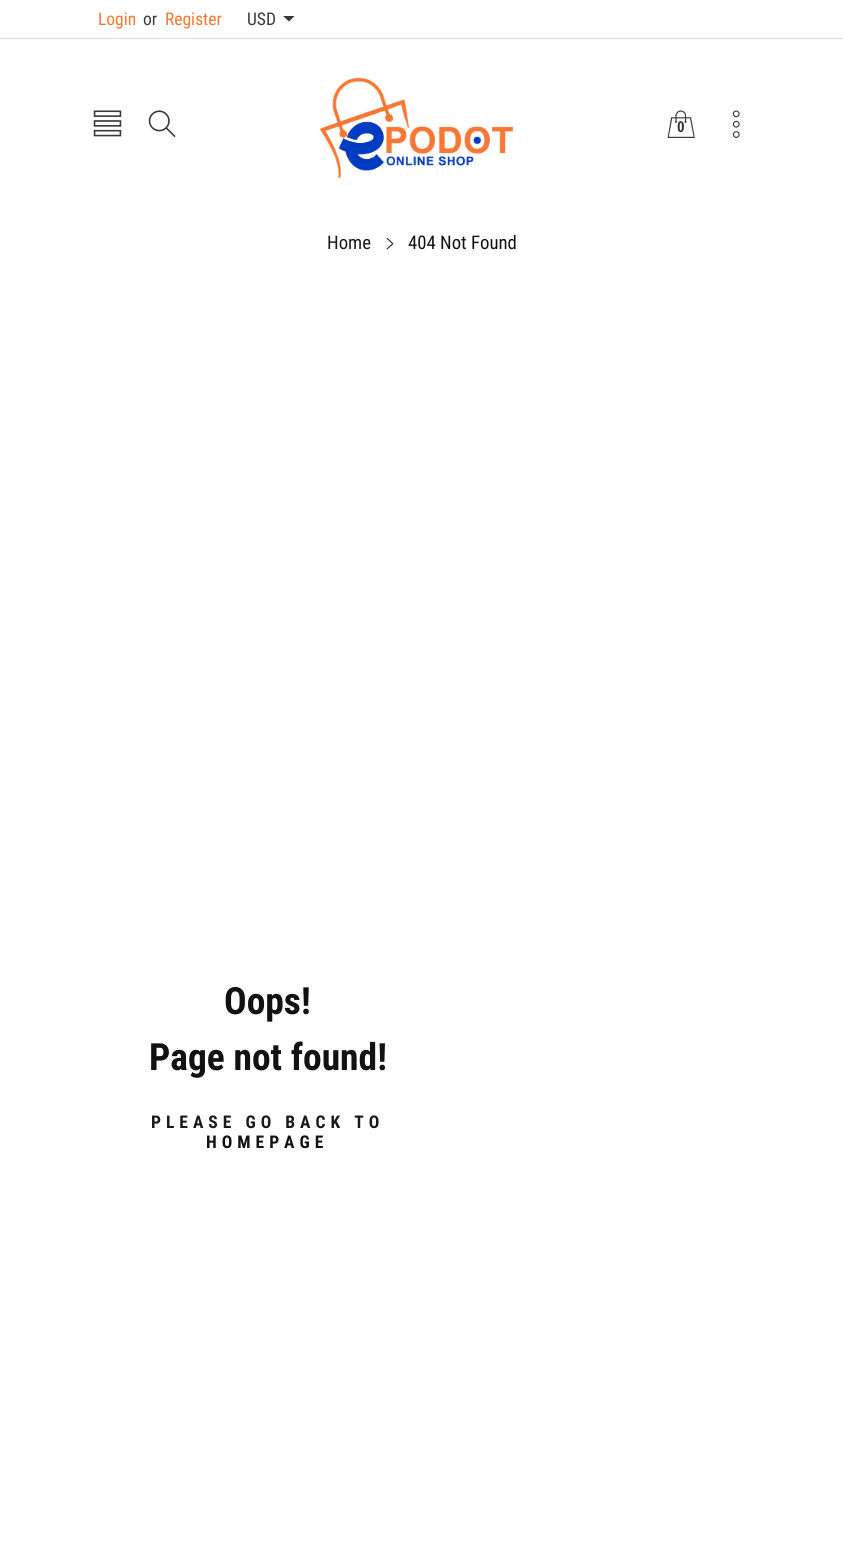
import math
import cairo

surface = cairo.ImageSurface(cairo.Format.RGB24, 843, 1544)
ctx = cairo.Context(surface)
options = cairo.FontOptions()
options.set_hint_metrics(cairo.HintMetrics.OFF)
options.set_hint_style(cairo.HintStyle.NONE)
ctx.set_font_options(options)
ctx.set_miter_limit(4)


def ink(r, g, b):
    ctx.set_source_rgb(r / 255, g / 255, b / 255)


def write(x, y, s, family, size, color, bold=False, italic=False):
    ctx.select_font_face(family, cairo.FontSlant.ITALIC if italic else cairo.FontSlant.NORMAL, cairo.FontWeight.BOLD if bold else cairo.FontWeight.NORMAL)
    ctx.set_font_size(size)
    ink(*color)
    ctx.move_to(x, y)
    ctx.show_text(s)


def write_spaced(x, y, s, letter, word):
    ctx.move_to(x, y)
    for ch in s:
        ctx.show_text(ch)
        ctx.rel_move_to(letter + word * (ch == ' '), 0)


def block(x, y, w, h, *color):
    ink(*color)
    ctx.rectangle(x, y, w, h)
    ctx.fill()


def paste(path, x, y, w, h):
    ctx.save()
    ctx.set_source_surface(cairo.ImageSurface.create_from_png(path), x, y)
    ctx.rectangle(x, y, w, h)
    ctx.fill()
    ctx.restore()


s1 = dict(family="Roboto Condensed", size=17.5, color=(248, 119, 51))
s2 = dict(family="Roboto Condensed", size=17.5, color=(57, 57, 57))
s3 = dict(family="Roboto Condensed", size=15, color=(57, 57, 57), bold=True)
s4 = dict(family="Roboto Condensed", size=18.75, color=(26, 26, 26))
s5 = dict(family="Roboto Condensed", size=18.75, color=(18, 18, 18))
s6 = dict(family="Roboto Condensed", size=37.5, color=(18, 18, 18), bold=True)

ink(255, 255, 255)
ctx.paint()
block(0, 38, 843, 1, 218, 218, 218)
write(98, 25, "Login", **s1)
write(143, 25, "or", **s2)
write(165, 25, "Register", **s1)
write(247, 25, "USD", **s2)
ctx.new_path()
ctx.move_to(283, 16)
ctx.line_to(289, 21.5)
ctx.line_to(294.5, 16)
ctx.close_path()
ctx.fill()
paste("pic1.png", 93, 110, 29, 27)
paste("pic2.png", 148, 110, 28, 28)
paste("pic3.png", 320, 77, 194, 102)
paste("pic4.png", 667, 110, 28, 28)
write(677, 132, "0", **s3)
paste("pic5.png", 732, 110, 8, 28)
write(327, 249, "Home", **s4)
paste("pic6.png", 386, 237, 8, 13)
write(408, 249, "404 Not Found", **s5)
write(224, 1014, "Oops!", **s6)
write(149, 1070, "Page not found!", **s6)
ctx.set_font_size(17.5)
ink(26, 26, 26)
write_spaced(151, 1128, "PLEASE GO BACK TO", 5, 0)
ink(18, 18, 18)
write_spaced(206, 1148, "HOMEPAGE", 5, 0)
surface.write_to_png("screenshot.png")
